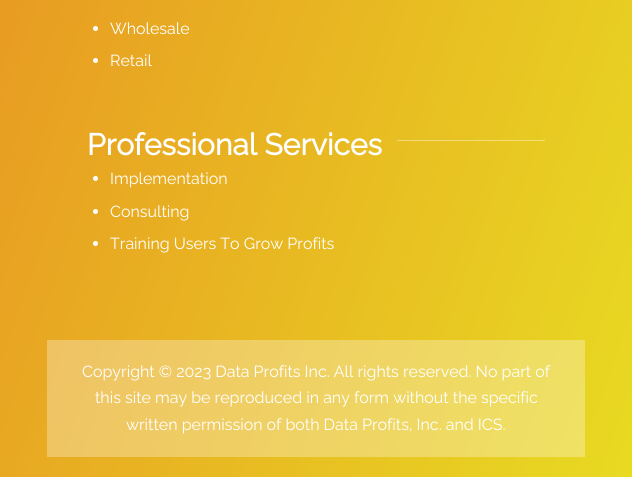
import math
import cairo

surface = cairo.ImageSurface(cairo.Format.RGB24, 632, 477)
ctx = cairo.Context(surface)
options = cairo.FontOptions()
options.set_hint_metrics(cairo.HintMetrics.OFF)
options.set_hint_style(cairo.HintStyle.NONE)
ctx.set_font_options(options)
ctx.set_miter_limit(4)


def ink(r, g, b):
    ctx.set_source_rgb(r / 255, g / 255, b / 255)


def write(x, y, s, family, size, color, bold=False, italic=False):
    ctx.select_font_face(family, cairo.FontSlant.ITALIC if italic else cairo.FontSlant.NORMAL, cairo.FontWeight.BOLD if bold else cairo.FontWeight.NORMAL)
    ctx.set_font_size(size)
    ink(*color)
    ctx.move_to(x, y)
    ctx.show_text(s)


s1 = dict(family="Raleway Thin", size=16, color=(255, 255, 255))
s2 = dict(family="Raleway", size=30, color=(255, 255, 255), bold=True)

ink(255, 255, 255)
ctx.paint()
gradient = cairo.LinearGradient(-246, -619, 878, -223)
gradient.add_color_stop_rgba(0, 0.91, 0.467, 0.133, 1)
gradient.add_color_stop_rgba(1, 0.91, 0.855, 0.133, 1)
ctx.set_source(gradient)
ctx.rectangle(0, 0, 632, 477)
ctx.fill()
gradient = cairo.LinearGradient(-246, -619, 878, -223)
gradient.add_color_stop_rgba(0, 0.937, 0.627, 0.392, 1)
gradient.add_color_stop_rgba(1, 0.937, 0.898, 0.392, 1)
ctx.set_source(gradient)
ctx.rectangle(47, 340, 538, 117)
ctx.fill()
gradient = cairo.LinearGradient(-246, -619, 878, -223)
gradient.add_color_stop_rgba(0, 0.945, 0.678, 0.478, 1)
gradient.add_color_stop_rgba(1, 0.945, 0.914, 0.478, 1)
ctx.set_source(gradient)
ctx.rectangle(397, 140, 148, 1)
ctx.fill()
ink(255, 255, 255)
ctx.arc(95.5, 28.5, 2.5, 0, 2 * math.pi)
ctx.fill()
write(110, 34, "Wholesale", **s1)
ctx.new_path()
ctx.arc(95.5, 60.5, 2.5, 0, 2 * math.pi)
ctx.fill()
write(110, 66, "Retail", **s1)
write(87, 155, "Professional Services", **s2)
ctx.new_path()
ctx.arc(95.5, 178.5, 2.5, 0, 2 * math.pi)
ctx.fill()
write(110, 184, "Implementation", **s1)
ctx.new_path()
ctx.arc(95.5, 211.5, 2.5, 0, 2 * math.pi)
ctx.fill()
write(110, 217, "Consulting", **s1)
ctx.new_path()
ctx.arc(95.5, 243.5, 2.5, 0, 2 * math.pi)
ctx.fill()
write(110, 249, "Training Users To Grow Profits", **s1)
write(82, 377, "Copyright © 2023 Data Profits Inc. All rights reserved. No part of", **s1)
write(95, 403, "this site may be reproduced in any form without the specific", **s1)
write(126, 430, "written permission of both Data Profits, Inc. and ICS.", **s1)
surface.write_to_png("screenshot.png")
